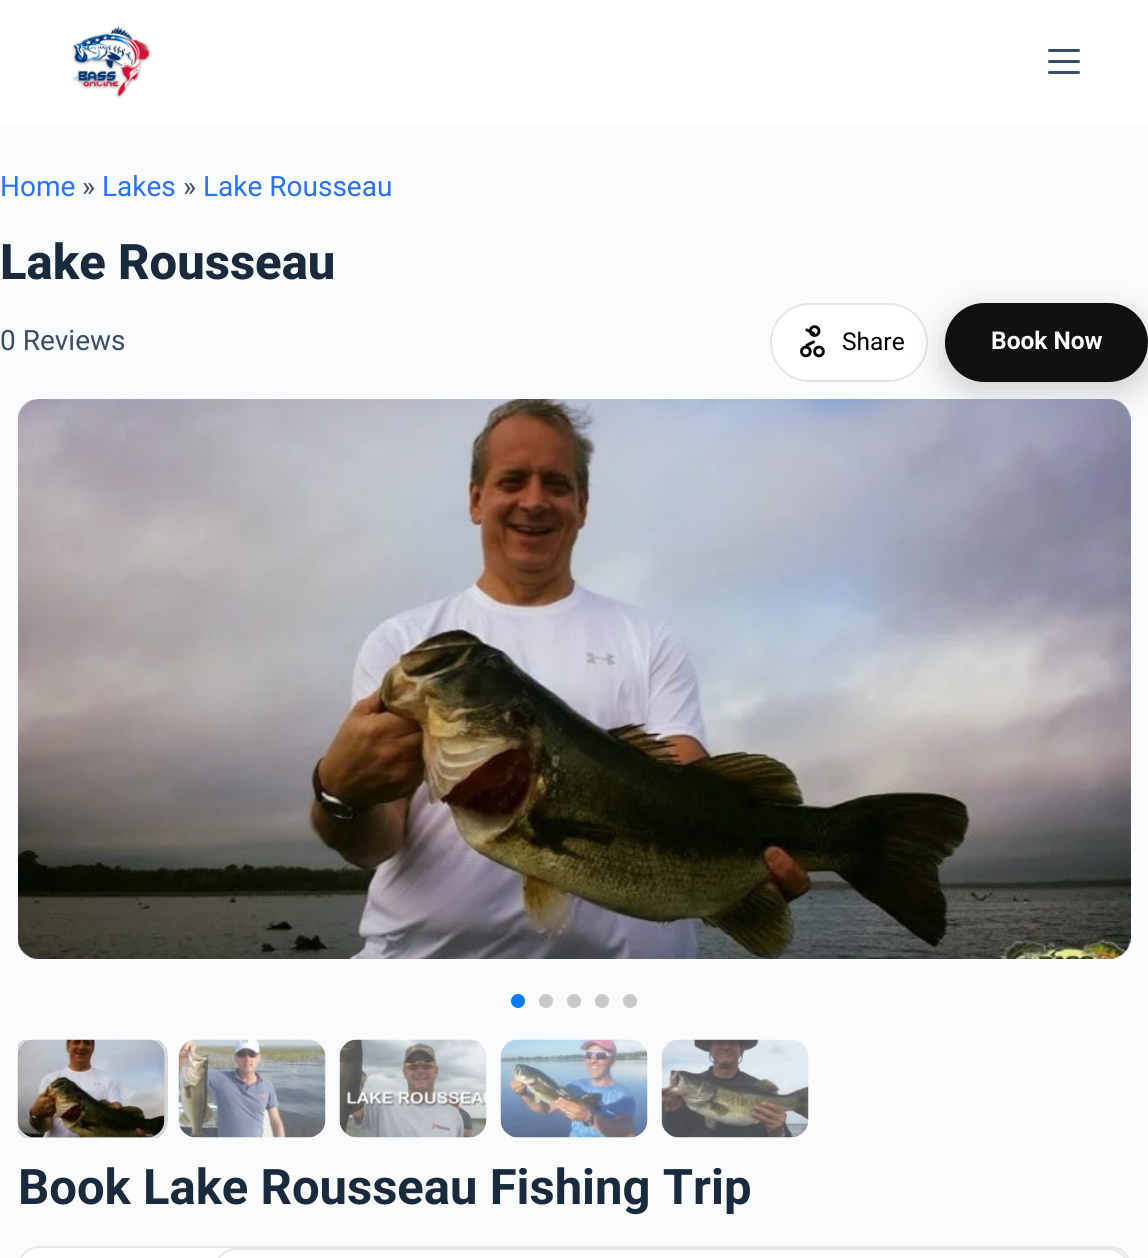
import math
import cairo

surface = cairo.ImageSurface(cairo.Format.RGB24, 1148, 1258)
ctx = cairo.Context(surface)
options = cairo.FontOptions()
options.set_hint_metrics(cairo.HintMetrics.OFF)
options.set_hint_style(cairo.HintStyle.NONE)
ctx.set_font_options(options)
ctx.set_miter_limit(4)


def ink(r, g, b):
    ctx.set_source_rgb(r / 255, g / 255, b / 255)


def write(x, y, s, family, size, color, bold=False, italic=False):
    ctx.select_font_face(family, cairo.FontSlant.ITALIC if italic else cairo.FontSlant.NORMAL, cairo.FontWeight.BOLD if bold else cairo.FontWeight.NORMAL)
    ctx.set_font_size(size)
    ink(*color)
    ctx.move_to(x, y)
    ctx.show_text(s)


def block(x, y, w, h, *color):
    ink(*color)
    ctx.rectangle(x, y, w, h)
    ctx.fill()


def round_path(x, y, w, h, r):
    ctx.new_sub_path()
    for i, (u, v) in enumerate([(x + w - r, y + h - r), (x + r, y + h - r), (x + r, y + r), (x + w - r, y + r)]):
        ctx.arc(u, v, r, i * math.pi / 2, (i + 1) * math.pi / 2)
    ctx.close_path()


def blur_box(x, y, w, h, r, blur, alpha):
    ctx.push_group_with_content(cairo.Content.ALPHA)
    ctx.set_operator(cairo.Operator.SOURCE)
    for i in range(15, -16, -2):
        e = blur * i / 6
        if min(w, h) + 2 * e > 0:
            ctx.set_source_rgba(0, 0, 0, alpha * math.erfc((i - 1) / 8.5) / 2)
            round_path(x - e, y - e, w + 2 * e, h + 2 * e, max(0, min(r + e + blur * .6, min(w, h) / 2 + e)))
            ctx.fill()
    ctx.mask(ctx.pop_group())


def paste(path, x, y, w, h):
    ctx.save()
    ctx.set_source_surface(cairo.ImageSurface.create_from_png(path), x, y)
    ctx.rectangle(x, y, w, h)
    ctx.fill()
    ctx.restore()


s1 = dict(family="Roboto", size=28, color=(40, 114, 250))
s2 = dict(family="Roboto", size=28, color=(58, 79, 102))
s3 = dict(family="Roboto ExtraBold", size=49, color=(25, 42, 61))
s4 = dict(family="Roboto", size=24.5, color=(0, 0, 0))
s5 = dict(family="Roboto", size=24.5, color=(255, 255, 255), bold=True)
s6 = dict(family="Roboto", size=49, color=(25, 42, 61), bold=True)

ink(250, 251, 252)
ctx.paint()
block(0, 0, 1148, 123, 255, 255, 255)
paste("pic1.png", 72, 26, 80, 73)
ink(58, 79, 102)
round_path(1048, 49, 32, 3, 1.5)
ctx.fill()
round_path(1048, 60, 32, 3, 1.5)
ctx.fill()
round_path(1048, 71, 32, 3, 1.5)
ctx.fill()
write(0, 196, "Home", **s1)
write(82, 196, "»", **s2)
write(102, 196, "Lakes", **s1)
write(183, 196, "»", **s2)
write(203, 196, "Lake Rousseau", **s1)
write(0, 279, "Lake Rousseau", **s3)
write(0, 350, "0 Reviews", **s2)
ink(255, 255, 255)
round_path(771, 304, 156, 77, 38.5)
ctx.fill_preserve()
ink(229, 229, 229)
ctx.stroke()
paste("pic2.png", 800, 325, 25, 33)
write(842, 350, "Share", **s4)
ink(0, 0, 0)
blur_box(945, 313, 203, 79, 39.5, 16, 0.18)
ink(17, 17, 17)
round_path(945, 303, 203, 79, 39.5)
ctx.fill()
round_path(946, 304, 201, 77, 38.5)
ctx.set_source_rgba(0, 0, 0, 0.1)
ctx.stroke()
write(991, 349, "Book Now", **s5)
paste("pic3.png", 18, 399, 1113, 560)
ink(0, 122, 255)
ctx.arc(518, 1001, 7, 0, 2 * math.pi)
ctx.fill()
ink(200, 201, 202)
ctx.arc(546, 1001, 7, 0, 2 * math.pi)
ctx.fill()
ctx.arc(574, 1001, 7, 0, 2 * math.pi)
ctx.fill()
ctx.arc(602, 1001, 7, 0, 2 * math.pi)
ctx.fill()
ctx.arc(630, 1001, 7, 0, 2 * math.pi)
ctx.fill()
paste("pic4.png", 17, 1039, 148, 99)
ctx.save()
ctx.rectangle(18, 1040, 1113, 98)
ctx.clip()
round_path(16, 1038, 150, 101, 19)
ctx.set_source_rgba(0, 0, 0, 0.15)
ctx.set_line_width(4)
ctx.stroke()
ctx.restore()
paste("pic5.png", 178, 1039, 148, 99)
paste("pic6.png", 339, 1039, 148, 99)
paste("pic7.png", 500, 1039, 148, 99)
paste("pic8.png", 661, 1039, 148, 99)
write(18, 1204, "Book Lake Rousseau Fishing Trip", **s6)
ink(255, 255, 255)
round_path(19, 1247, 1111, 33, 20)
ctx.fill_preserve()
ink(230, 230, 230)
ctx.stroke()
round_path(216, 1249, 912, 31, 20)
ctx.stroke()
surface.write_to_png("screenshot.png")
